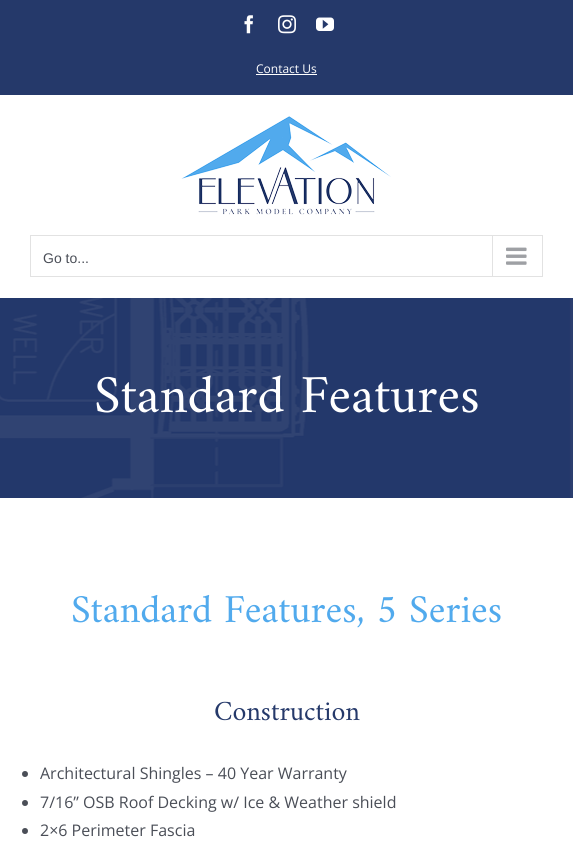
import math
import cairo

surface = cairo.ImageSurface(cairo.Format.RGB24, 573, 851)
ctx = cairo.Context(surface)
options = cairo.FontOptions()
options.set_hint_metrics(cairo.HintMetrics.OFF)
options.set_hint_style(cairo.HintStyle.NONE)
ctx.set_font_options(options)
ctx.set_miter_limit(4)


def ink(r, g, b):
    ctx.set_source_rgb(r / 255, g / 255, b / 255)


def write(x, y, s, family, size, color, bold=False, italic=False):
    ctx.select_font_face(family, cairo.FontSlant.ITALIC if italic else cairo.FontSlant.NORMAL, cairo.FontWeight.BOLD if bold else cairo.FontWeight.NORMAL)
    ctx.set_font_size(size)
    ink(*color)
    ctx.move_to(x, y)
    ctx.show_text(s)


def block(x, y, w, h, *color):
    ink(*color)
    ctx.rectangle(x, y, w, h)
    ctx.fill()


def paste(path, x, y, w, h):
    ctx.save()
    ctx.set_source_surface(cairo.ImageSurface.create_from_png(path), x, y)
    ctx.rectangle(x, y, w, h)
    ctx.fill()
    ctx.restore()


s1 = dict(family="Open Sans", size=12, color=(255, 255, 255))
s2 = dict(family="Liberation Sans", size=14, color=(74, 78, 87))
s3 = dict(family="Amiri", size=54, color=(255, 255, 255))
s4 = dict(family="Amiri", size=40, color=(81, 170, 237))
s5 = dict(family="Amiri", size=28, color=(37, 57, 106))
s6 = dict(family="Open Sans", size=16, color=(74, 78, 87))

ink(255, 255, 255)
ctx.paint()
block(0, 0, 573, 95, 37, 57, 106)
paste("pic1.png", 244, 15, 9, 19)
paste("pic2.png", 278, 15, 18, 19)
paste("pic3.png", 316, 17, 18, 14)
write(256, 73, "Contact Us", **s1)
block(256, 74, 61, 1, 255, 255, 255)
paste("pic4.png", 181, 116, 210, 99)
ctx.rectangle(30.5, 235.5, 512, 41)
ink(226, 226, 226)
ctx.set_line_width(1)
ctx.stroke()
write(43, 263, "Go to...", **s2)
block(492, 236, 1, 40, 226, 226, 226)
paste("pic5.png", 506, 247, 21, 18)
paste("pic6.png", 0, 298, 573, 200)
write(94, 412, "Standard Features", **s3)
write(71, 622, "Standard Features, 5 Series", **s4)
write(214, 720, "Construction", **s5)
ink(74, 78, 87)
ctx.new_path()
ctx.arc(25, 774, 3, 0, 2 * math.pi)
ctx.fill()
write(40, 779, "Architectural Shingles – 40 Year Warranty", **s6)
ctx.new_path()
ctx.arc(25, 803, 3, 0, 2 * math.pi)
ctx.fill()
write(40, 808, "7/16” OSB Roof Decking w/ Ice & Weather shield", **s6)
ctx.new_path()
ctx.arc(25, 831, 3, 0, 2 * math.pi)
ctx.fill()
write(40, 836, "2×6 Perimeter Fascia", **s6)
surface.write_to_png("screenshot.png")
